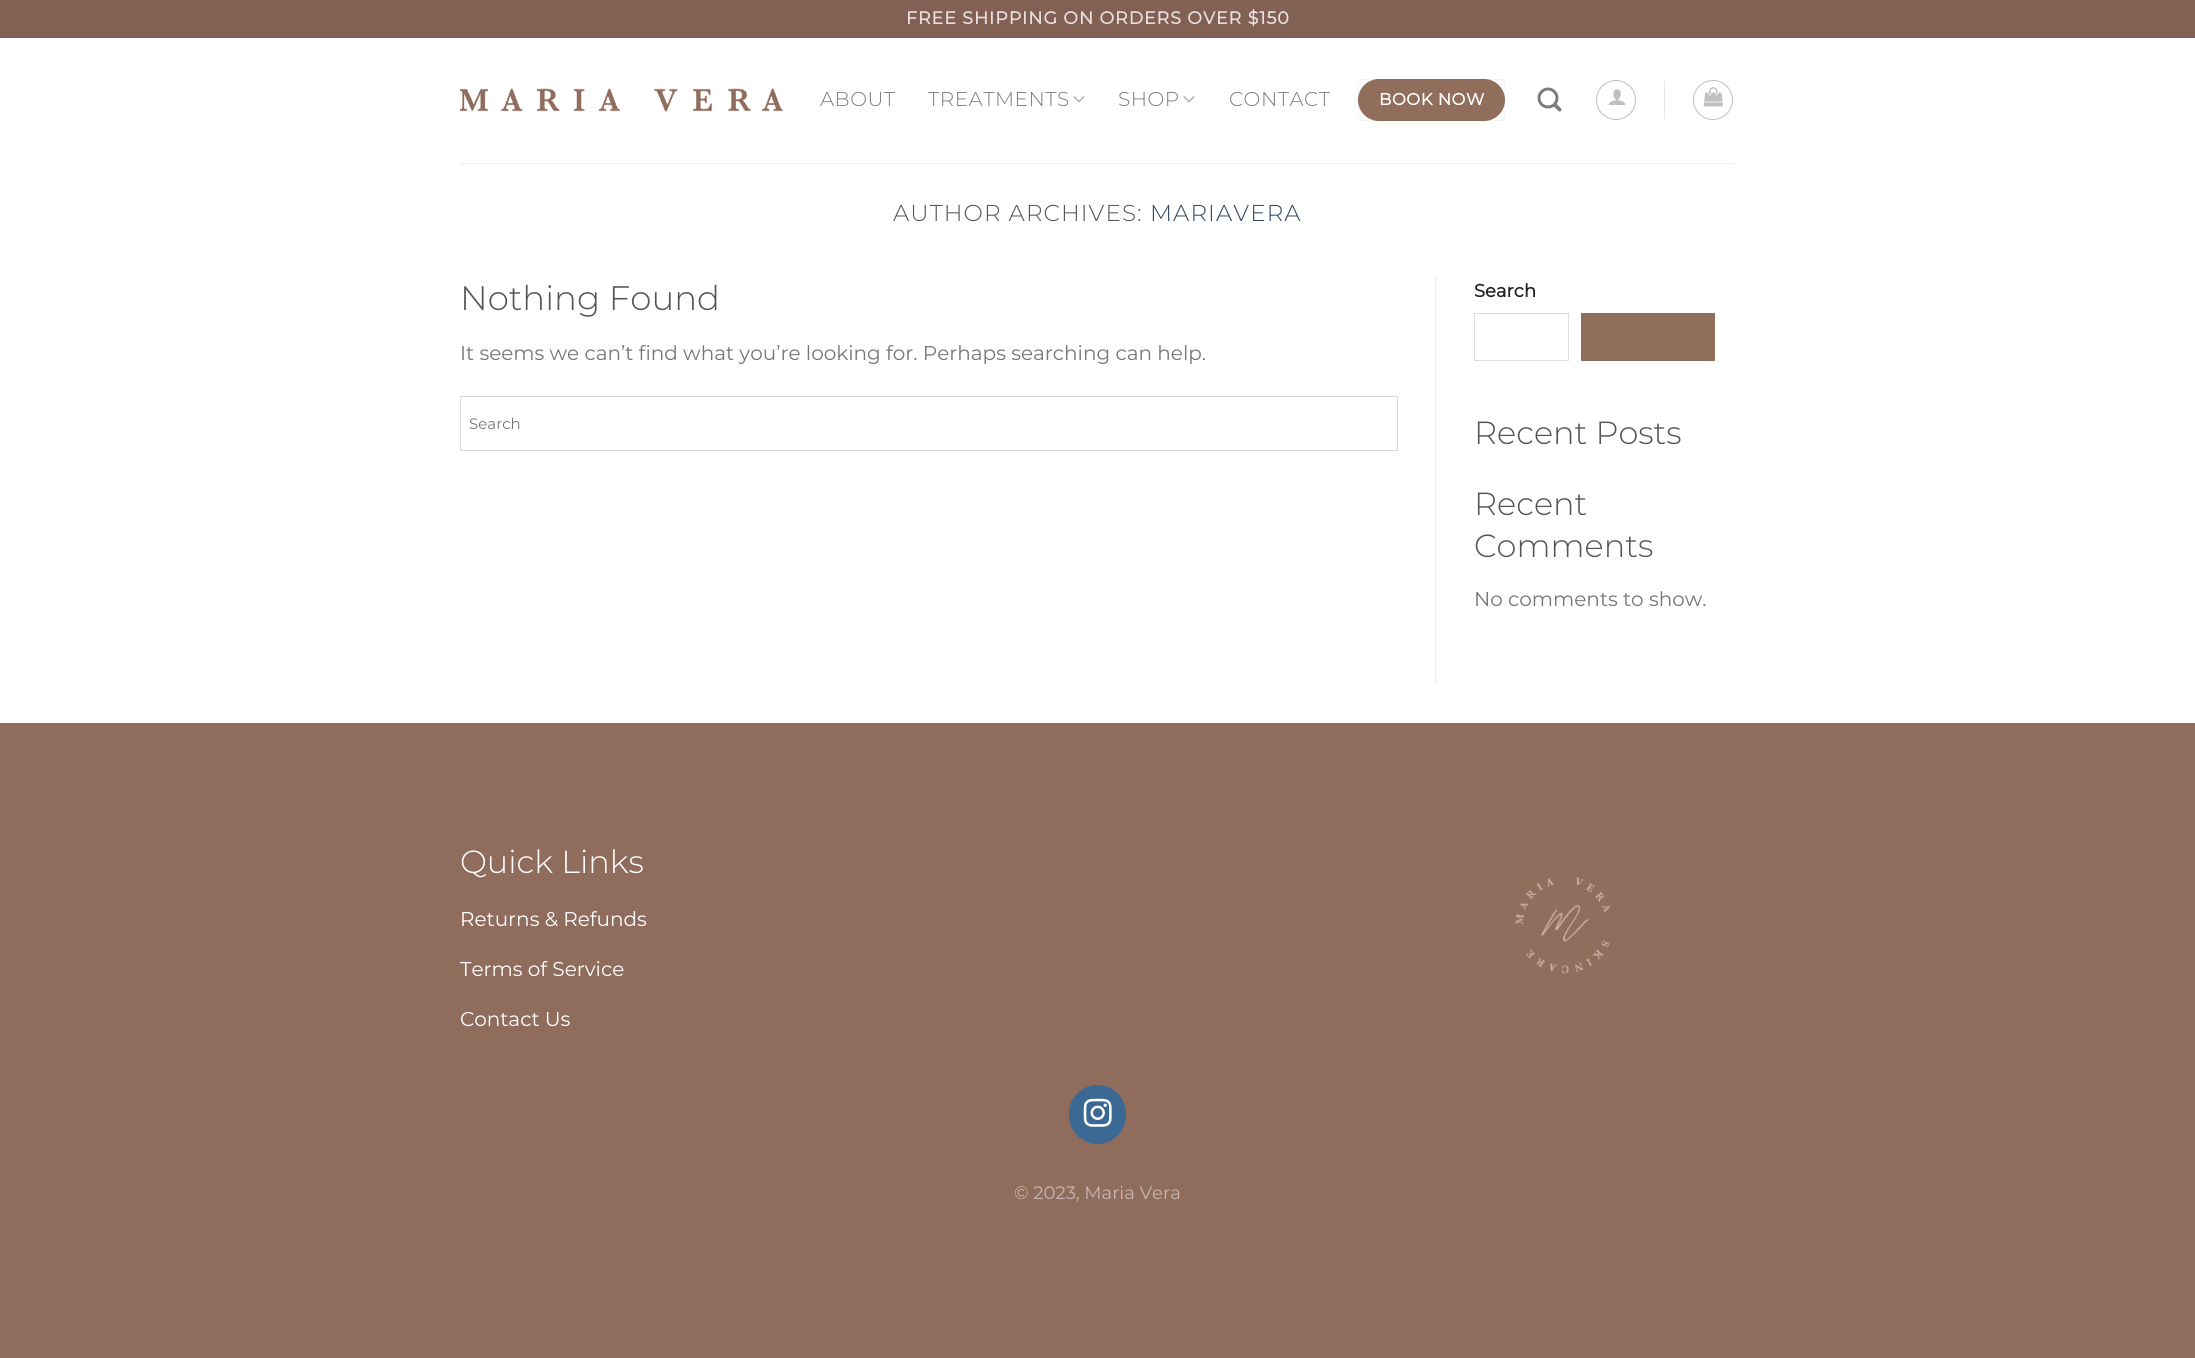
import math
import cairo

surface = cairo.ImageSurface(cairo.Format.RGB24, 2195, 1358)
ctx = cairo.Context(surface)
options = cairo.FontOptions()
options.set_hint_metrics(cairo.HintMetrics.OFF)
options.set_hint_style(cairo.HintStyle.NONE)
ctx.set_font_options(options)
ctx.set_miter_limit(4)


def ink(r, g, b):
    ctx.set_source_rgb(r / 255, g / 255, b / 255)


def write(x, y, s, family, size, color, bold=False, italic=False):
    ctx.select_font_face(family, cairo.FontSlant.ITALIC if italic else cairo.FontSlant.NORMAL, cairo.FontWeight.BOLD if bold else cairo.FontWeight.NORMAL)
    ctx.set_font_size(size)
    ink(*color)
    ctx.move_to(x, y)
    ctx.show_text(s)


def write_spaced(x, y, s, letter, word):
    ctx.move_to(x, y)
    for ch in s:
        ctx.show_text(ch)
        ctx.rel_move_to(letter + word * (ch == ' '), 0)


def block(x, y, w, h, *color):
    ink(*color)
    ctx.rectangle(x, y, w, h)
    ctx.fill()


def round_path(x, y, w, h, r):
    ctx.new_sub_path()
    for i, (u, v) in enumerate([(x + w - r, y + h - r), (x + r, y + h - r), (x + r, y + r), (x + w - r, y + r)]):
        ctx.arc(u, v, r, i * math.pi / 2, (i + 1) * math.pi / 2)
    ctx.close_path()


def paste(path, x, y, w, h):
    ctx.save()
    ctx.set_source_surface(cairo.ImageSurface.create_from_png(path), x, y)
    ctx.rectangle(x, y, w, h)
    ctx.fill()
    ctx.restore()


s1 = dict(family="Montserrat Light", size=34, color=(85, 85, 85))
s2 = dict(family="Montserrat", size=20, color=(119, 119, 119))
s3 = dict(family="Montserrat", size=15, color=(119, 119, 119))
s4 = dict(family="Montserrat", size=18, color=(34, 34, 34), bold=True)
s5 = dict(family="Montserrat Light", size=32, color=(85, 85, 85))
s6 = dict(family="Montserrat Light", size=32, color=(255, 255, 255))
s7 = dict(family="Montserrat", size=20, color=(255, 255, 255))
s8 = dict(family="Montserrat", size=18, color=(200, 182, 174))

ink(144, 108, 92)
ctx.paint()
block(0, 38, 2195, 685, 255, 255, 255)
block(0, 0, 2195, 38, 131, 96, 84)
ctx.select_font_face("Montserrat", cairo.FontSlant.NORMAL, cairo.FontWeight.BOLD)
ctx.set_font_size(17.5)
ink(230, 223, 221)
write_spaced(906, 24, "FREE SHIPPING ON ORDERS OVER $150", 0.9, 0)
paste("pic1.png", 460, 88, 323, 24)
ctx.select_font_face("Montserrat Light")
ctx.set_font_size(20)
ink(125, 125, 125)
write_spaced(820, 106, "ABOUT", 0.5, 0)
write_spaced(928, 106, "TREATMENTS", 0.5, 0)
paste("pic2.png", 1073, 96, 12, 7)
write_spaced(1118, 106, "SHOP", 0.5, 0)
paste("pic2.png", 1183, 96, 12, 7)
write_spaced(1229, 106, "CONTACT", 0.5, 0)
ink(145, 110, 92)
round_path(1358, 79, 147, 42, 21)
ctx.fill()
ctx.rectangle(1358.5, 79.5, 146, 41)
ctx.set_source_rgba(0, 0, 0, 0.05)
ctx.set_line_width(1)
ctx.stroke()
ctx.select_font_face("Montserrat", cairo.FontSlant.NORMAL, cairo.FontWeight.BOLD)
ctx.set_font_size(16.5)
ink(255, 255, 255)
write_spaced(1379, 105, "BOOK NOW", 0.5, 0)
paste("pic3.png", 1537, 87, 25, 25)
ctx.arc(1616, 100, 19.5, 0, 2 * math.pi)
ink(192, 192, 192)
ctx.stroke()
paste("pic4.png", 1608, 89, 18, 16)
block(1664, 81, 1, 38, 230, 230, 230)
ctx.arc(1713, 100, 19.5, 0, 2 * math.pi)
ink(192, 192, 192)
ctx.stroke()
paste("pic5.png", 1703, 87, 20, 20)
block(460, 163, 1275, 1, 241, 241, 241)
ctx.select_font_face("Montserrat Light")
ctx.set_font_size(23)
ink(85, 85, 85)
write_spaced(893, 221, "AUTHOR ARCHIVES:", 1.1, 0)
ink(51, 72, 98)
write_spaced(1150, 221, "MARIAVERA", 1.1, 0)
write(460, 310, "Nothing Found", **s1)
write(460, 360, "It seems we can’t find what you’re looking for. Perhaps searching can help.", **s2)
ctx.rectangle(460.5, 396.5, 937, 54)
ink(216, 216, 216)
ctx.stroke()
write(469, 429, "Search", **s3)
block(1435, 276, 1, 409, 236, 236, 236)
write(1474, 297, "Search", **s4)
ctx.rectangle(1474.5, 313.5, 94, 47)
ink(221, 221, 221)
ctx.stroke()
block(1581, 313, 134, 48, 145, 110, 92)
write(1474, 444, "Recent Posts", **s5)
write(1474, 515, "Recent", **s5)
write(1474, 557, "Comments", **s5)
write(1474, 606, "No comments to show.", **s2)
write(460, 873, "Quick Links", **s6)
write(460, 926, "Returns & Refunds", **s7)
write(460, 976, "Terms of Service", **s7)
write(460, 1026, "Contact Us", **s7)
paste("pic6.png", 1515, 877, 96, 97)
ink(59, 105, 148)
round_path(1069.5, 1085.5, 56, 58, 28)
ctx.fill_preserve()
ctx.stroke()
paste("pic7.png", 1083, 1098, 29, 29)
write(1014, 1199, "© 2023, Maria Vera", **s8)
surface.write_to_png("screenshot.png")
